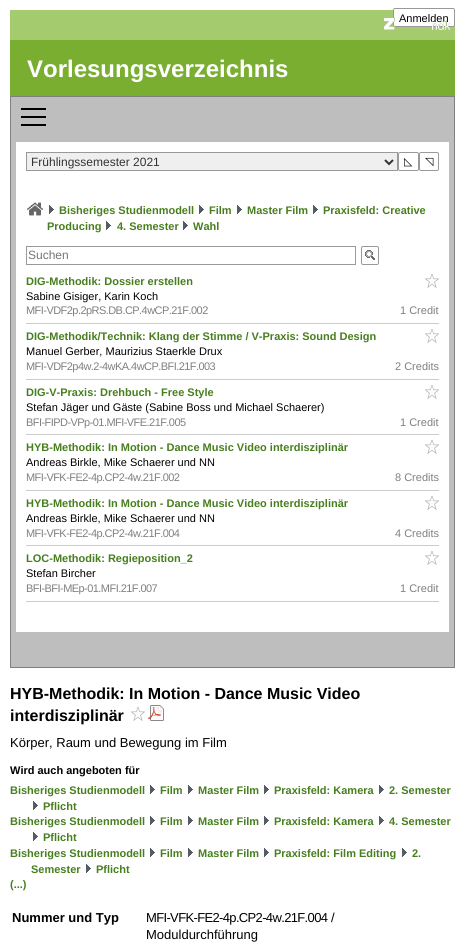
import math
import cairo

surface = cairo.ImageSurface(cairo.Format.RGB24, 465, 947)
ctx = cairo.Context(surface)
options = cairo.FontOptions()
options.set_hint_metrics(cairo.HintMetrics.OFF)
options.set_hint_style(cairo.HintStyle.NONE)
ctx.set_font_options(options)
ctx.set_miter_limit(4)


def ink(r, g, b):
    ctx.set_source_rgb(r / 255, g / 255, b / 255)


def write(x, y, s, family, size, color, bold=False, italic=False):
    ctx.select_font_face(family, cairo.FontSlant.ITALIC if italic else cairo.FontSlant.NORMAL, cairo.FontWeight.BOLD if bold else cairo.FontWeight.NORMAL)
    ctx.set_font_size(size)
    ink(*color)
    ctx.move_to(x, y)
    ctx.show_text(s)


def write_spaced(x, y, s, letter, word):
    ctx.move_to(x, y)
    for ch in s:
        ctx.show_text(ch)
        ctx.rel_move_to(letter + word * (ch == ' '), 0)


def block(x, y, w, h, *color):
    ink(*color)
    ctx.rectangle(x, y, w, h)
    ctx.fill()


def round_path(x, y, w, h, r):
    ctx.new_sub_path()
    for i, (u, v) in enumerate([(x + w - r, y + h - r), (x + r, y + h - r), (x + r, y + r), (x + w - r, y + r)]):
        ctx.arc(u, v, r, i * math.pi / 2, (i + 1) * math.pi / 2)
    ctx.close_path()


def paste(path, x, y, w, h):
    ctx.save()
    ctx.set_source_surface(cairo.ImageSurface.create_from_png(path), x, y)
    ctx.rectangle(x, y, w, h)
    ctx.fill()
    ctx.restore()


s1 = dict(family="Liberation Sans", size=11, color=(0, 0, 0))
s2 = dict(family="Liberation Sans", size=24, color=(255, 255, 255), bold=True)
s3 = dict(family="Liberation Sans", size=12, color=(51, 51, 51))
s4 = dict(family="DejaVu Sans", size=11, color=(0, 0, 0))
s5 = dict(family="Liberation Sans", size=11, color=(71, 126, 30), bold=True)
s6 = dict(family="Liberation Sans", size=12, color=(117, 117, 117))
s7 = dict(family="Liberation Sans", size=11, color=(128, 128, 128))
s8 = dict(family="Liberation Sans", size=16, color=(0, 0, 0), bold=True)
s9 = dict(family="Liberation Sans", size=13, color=(0, 0, 0))
s10 = dict(family="Liberation Sans", size=11, color=(0, 0, 0), bold=True)
s11 = dict(family="Liberation Sans", size=13, color=(0, 0, 0), bold=True)

ink(255, 255, 255)
ctx.paint()
block(10, 10, 445, 30, 164, 204, 111)
ink(255, 255, 255)
round_path(393.5, 8.5, 61, 18, 1.5)
ctx.fill_preserve()
ink(153, 153, 153)
ctx.set_line_width(1)
ctx.stroke()
write(399, 22, "Anmelden", **s1)
paste("pic1.png", 384, 17, 66, 13)
block(10, 40, 445, 56, 121, 174, 49)
write(27, 77, "Vorlesungsverzeichnis", **s2)
block(11, 97, 443, 570, 190, 190, 190)
block(10, 96, 445, 1, 128, 128, 128)
block(454, 96, 1, 572, 128, 128, 128)
block(10, 96, 1, 41, 128, 128, 128)
block(21, 108, 25, 2, 0, 0, 0)
block(21, 116, 25, 2, 0, 0, 0)
block(21, 124, 25, 2, 0, 0, 0)
block(10, 667, 445, 1, 128, 128, 128)
block(10, 137, 1, 531, 128, 128, 128)
block(16, 142, 433, 490, 255, 255, 255)
ink(239, 239, 239)
ctx.rectangle(26.5, 152.5, 371, 18)
ctx.fill_preserve()
ink(153, 153, 153)
ctx.stroke()
ctx.new_path()
ctx.move_to(385, 160)
ctx.line_to(389, 164)
ctx.line_to(393, 160)
ink(51, 51, 51)
ctx.set_line_width(2)
ctx.stroke()
write(31, 166, "Frühlingssemester 2021", **s3)
round_path(398.5, 152.5, 20, 18, 1.5)
ink(153, 153, 153)
ctx.set_line_width(1)
ctx.stroke()
write(404, 165, "◺", **s4)
round_path(419.5, 152.5, 19, 18, 1.5)
ink(153, 153, 153)
ctx.stroke()
write(425, 165, "◹", **s4)
paste("pic2.png", 27, 202, 16, 14)
paste("pic3.png", 49, 205, 5, 9)
write(59, 214, "Bisheriges Studienmodell", **s5)
paste("pic3.png", 199, 205, 5, 9)
write(209, 214, "Film", **s5)
paste("pic3.png", 237, 205, 5, 9)
write(247, 214, "Master Film", **s5)
paste("pic3.png", 313, 205, 5, 9)
write(323, 214, "Praxisfeld: Creative", **s5)
write(47, 230, "Producing", **s5)
paste("pic3.png", 106, 221, 5, 9)
write(117, 230, "4. Semester", **s5)
paste("pic3.png", 183, 221, 5, 9)
write(193, 230, "Wahl", **s5)
ctx.rectangle(26.5, 246.5, 329, 18)
ink(153, 153, 153)
ctx.stroke()
write(28, 259, "Suchen", **s6)
paste("pic4.png", 365, 250, 10, 10)
round_path(361.5, 246.5, 17, 18, 1.5)
ink(153, 153, 153)
ctx.stroke()
block(26, 323, 413, 1, 204, 204, 204)
write(26, 285, "DIG-Methodik: Dossier erstellen", **s5)
paste("pic5.png", 425, 274, 14, 14)
write(26, 300, "Sabine Gisiger, Karin Koch", **s1)
ink(128, 128, 128)
write_spaced(26, 314, "MFI-VDF2p.2pRS.DB.CP.4wCP.21F.002", -0.55, 0)
write(400, 314, "1 Credit", **s7)
block(26, 379, 413, 1, 204, 204, 204)
write(26, 340, "DIG-Methodik/Technik: Klang der Stimme / V-Praxis: Sound Design", **s5)
paste("pic5.png", 425, 329, 14, 14)
write(26, 355, "Manuel Gerber, Maurizius Staerkle Drux", **s1)
ink(128, 128, 128)
write_spaced(26, 370, "MFI-VDF2p4w.2-4wKA.4wCP.BFI.21F.003", -0.55, 0)
write(395, 370, "2 Credits", **s7)
block(26, 434, 413, 1, 204, 204, 204)
write(26, 396, "DIG-V-Praxis: Drehbuch - Free Style", **s5)
paste("pic5.png", 425, 385, 14, 14)
write(26, 411, "Stefan Jäger und Gäste (Sabine Boss und Michael Schaerer)", **s1)
ink(128, 128, 128)
write_spaced(26, 426, "BFI-FIPD-VPp-01.MFI-VFE.21F.005", -0.55, 0)
write(400, 426, "1 Credit", **s7)
block(26, 490, 413, 1, 204, 204, 204)
write(26, 451, "HYB-Methodik: In Motion - Dance Music Video interdisziplinär", **s5)
paste("pic5.png", 425, 440, 14, 14)
write(26, 466, "Andreas Birkle, Mike Schaerer und NN", **s1)
ink(128, 128, 128)
write_spaced(26, 481, "MFI-VFK-FE2-4p.CP2-4w.21F.002", -0.55, 0)
write(395, 481, "8 Credits", **s7)
block(26, 545, 413, 1, 204, 204, 204)
write(26, 507, "HYB-Methodik: In Motion - Dance Music Video interdisziplinär", **s5)
paste("pic5.png", 425, 496, 14, 14)
write(26, 522, "Andreas Birkle, Mike Schaerer und NN", **s1)
ink(128, 128, 128)
write_spaced(26, 537, "MFI-VFK-FE2-4p.CP2-4w.21F.004", -0.55, 0)
write(395, 537, "4 Credits", **s7)
block(26, 601, 413, 1, 204, 204, 204)
write(26, 562, "LOC-Methodik: Regieposition_2", **s5)
paste("pic5.png", 425, 551, 14, 14)
write(26, 577, "Stefan Bircher", **s1)
ink(128, 128, 128)
write_spaced(26, 592, "BFI-BFI-MEp-01.MFI.21F.007", -0.55, 0)
write(400, 592, "1 Credit", **s7)
write(10, 699, "HYB-Methodik: In Motion - Dance Music Video", **s8)
write(10, 721, "interdisziplinär", **s8)
paste("pic5.png", 131, 707, 14, 14)
paste("pic6.png", 148, 705, 16, 16)
write(10, 747, "Körper, Raum und Bewegung im Film", **s9)
write(10, 774, "Wird auch angeboten für", **s10)
write(10, 794, "Bisheriges Studienmodell", **s5)
paste("pic3.png", 150, 785, 5, 9)
write(160, 794, "Film", **s5)
paste("pic3.png", 188, 785, 5, 9)
write(198, 794, "Master Film", **s5)
paste("pic3.png", 264, 785, 5, 9)
write(274, 794, "Praxisfeld: Kamera", **s5)
paste("pic3.png", 379, 785, 5, 9)
write(389, 794, "2. Semester", **s5)
paste("pic3.png", 33, 801, 5, 9)
write(43, 810, "Pflicht", **s5)
write(10, 825, "Bisheriges Studienmodell", **s5)
paste("pic3.png", 150, 816, 5, 9)
write(160, 825, "Film", **s5)
paste("pic3.png", 188, 816, 5, 9)
write(198, 825, "Master Film", **s5)
paste("pic3.png", 264, 816, 5, 9)
write(274, 825, "Praxisfeld: Kamera", **s5)
paste("pic3.png", 379, 816, 5, 9)
write(389, 825, "4. Semester", **s5)
paste("pic3.png", 33, 832, 5, 9)
write(43, 841, "Pflicht", **s5)
write(10, 857, "Bisheriges Studienmodell", **s5)
paste("pic3.png", 150, 848, 5, 9)
write(160, 857, "Film", **s5)
paste("pic3.png", 188, 848, 5, 9)
write(198, 857, "Master Film", **s5)
paste("pic3.png", 264, 848, 5, 9)
write(274, 857, "Praxisfeld: Film Editing", **s5)
paste("pic3.png", 402, 848, 5, 9)
write(412, 857, "2.", **s5)
write(31, 873, "Semester", **s5)
paste("pic3.png", 86, 864, 5, 9)
write(96, 873, "Pflicht", **s5)
write(10, 888, "(...)", **s5)
write(12, 922, "Nummer und Typ", **s11)
ctx.select_font_face("Liberation Sans")
write_spaced(146, 922, "MFI-VFK-FE2-4p.CP2-4w.21F.004", -0.65, 0)
write(331, 922, "/", **s9)
write(146, 939, "Moduldurchführung", **s9)
surface.write_to_png("screenshot.png")
